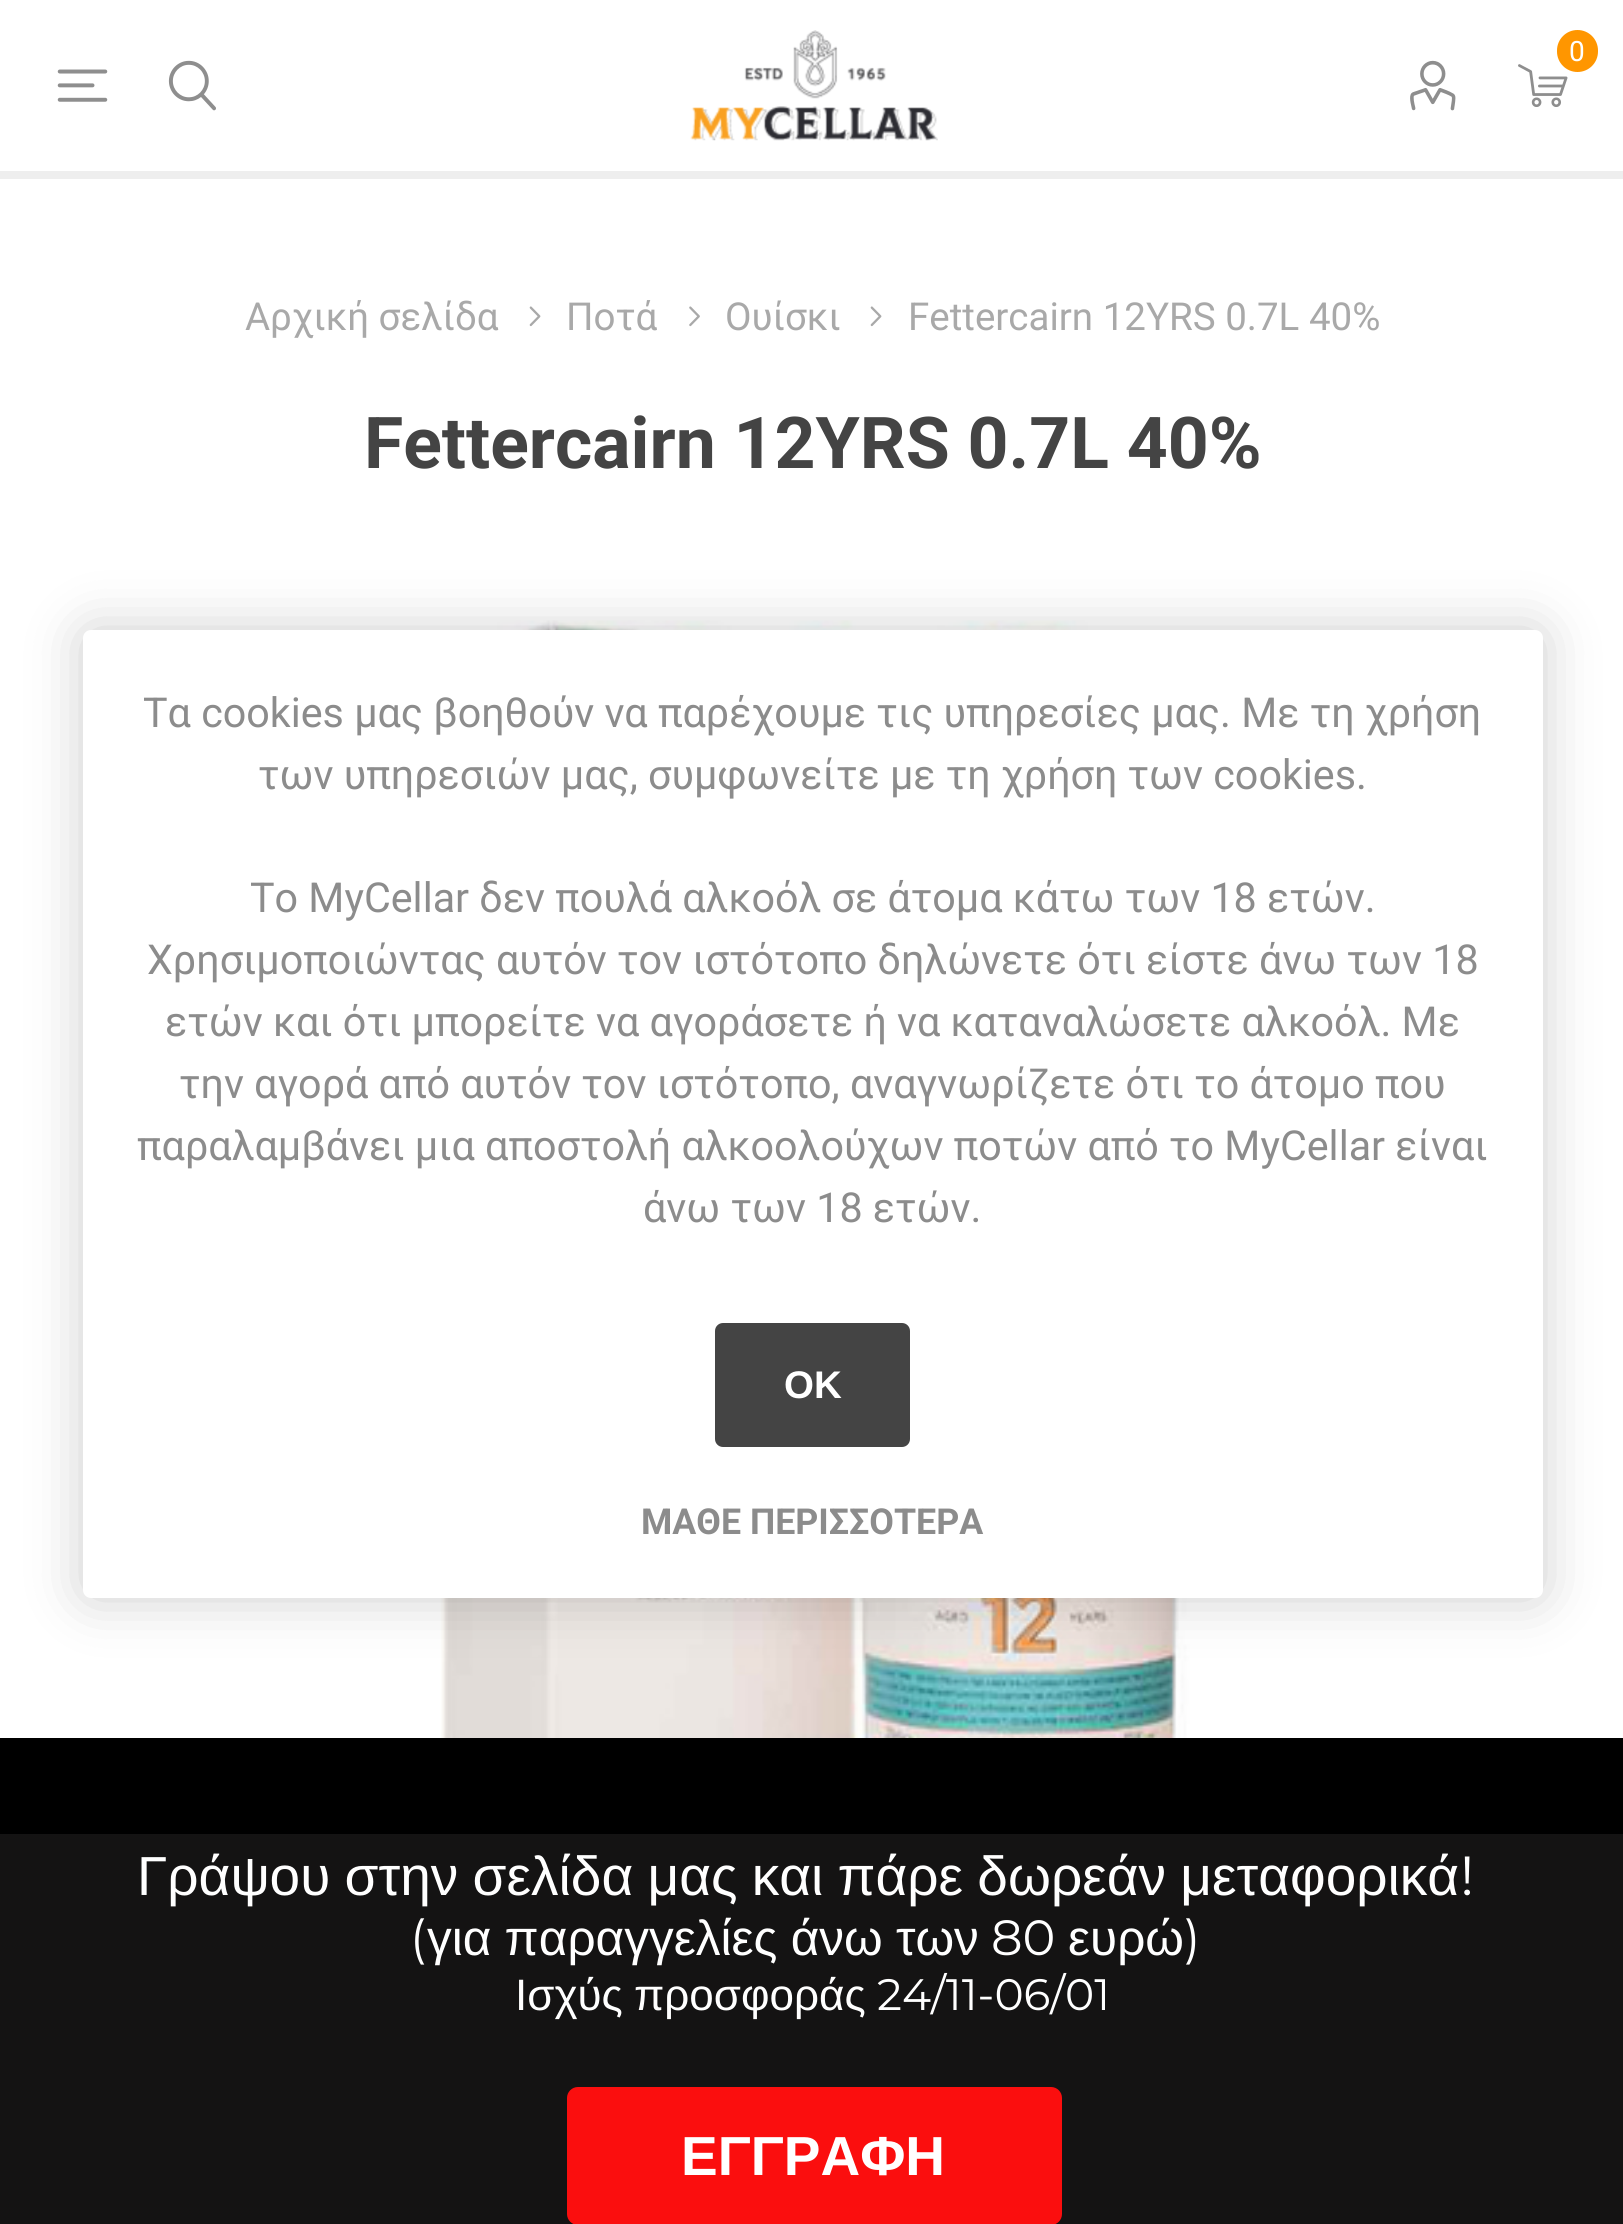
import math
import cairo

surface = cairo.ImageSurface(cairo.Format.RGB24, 1623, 2224)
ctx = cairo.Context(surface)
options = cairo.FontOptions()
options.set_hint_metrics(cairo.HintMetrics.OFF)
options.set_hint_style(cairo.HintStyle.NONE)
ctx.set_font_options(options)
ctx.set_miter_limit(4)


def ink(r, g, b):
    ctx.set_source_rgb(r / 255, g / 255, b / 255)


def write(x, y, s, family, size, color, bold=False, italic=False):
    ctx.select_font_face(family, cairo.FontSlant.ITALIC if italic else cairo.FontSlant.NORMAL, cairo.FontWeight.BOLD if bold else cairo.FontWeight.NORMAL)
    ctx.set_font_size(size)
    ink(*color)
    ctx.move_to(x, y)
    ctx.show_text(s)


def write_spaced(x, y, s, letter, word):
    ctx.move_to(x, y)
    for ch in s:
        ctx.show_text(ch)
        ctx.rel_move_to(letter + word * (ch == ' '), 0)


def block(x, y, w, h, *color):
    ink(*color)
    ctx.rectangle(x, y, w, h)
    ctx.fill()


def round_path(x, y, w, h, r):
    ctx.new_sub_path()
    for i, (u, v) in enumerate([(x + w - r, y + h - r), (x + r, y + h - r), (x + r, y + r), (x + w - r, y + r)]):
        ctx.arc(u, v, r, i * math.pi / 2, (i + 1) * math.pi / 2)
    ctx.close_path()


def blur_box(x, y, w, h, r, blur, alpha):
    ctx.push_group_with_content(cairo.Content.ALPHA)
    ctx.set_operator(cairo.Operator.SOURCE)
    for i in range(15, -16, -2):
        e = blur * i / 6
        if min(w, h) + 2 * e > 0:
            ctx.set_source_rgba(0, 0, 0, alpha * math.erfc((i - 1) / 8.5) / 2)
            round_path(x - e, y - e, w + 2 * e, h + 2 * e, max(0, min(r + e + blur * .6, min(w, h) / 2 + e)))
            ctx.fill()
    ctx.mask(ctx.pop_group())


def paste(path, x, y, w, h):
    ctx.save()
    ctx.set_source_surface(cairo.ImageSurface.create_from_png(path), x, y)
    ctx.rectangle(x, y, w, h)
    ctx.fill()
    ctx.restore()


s1 = dict(family="Roboto", size=28, color=(255, 255, 255))
s2 = dict(family="Roboto", size=38.5, color=(169, 169, 169))
s3 = dict(family="Roboto", size=71.5, color=(68, 68, 68), bold=True)
s4 = dict(family="Roboto", size=41.25, color=(140, 140, 140))
s5 = dict(family="Liberation Sans", size=38.5, color=(255, 255, 255), bold=True)
s6 = dict(family="Roboto", size=35.75, color=(140, 140, 140), bold=True)
s7 = dict(family="Montserrat", size=55, color=(255, 255, 255))
s8 = dict(family="Montserrat", size=49.5, color=(255, 255, 255))
s9 = dict(family="Liberation Sans", size=49.5, color=(255, 255, 255))
s10 = dict(family="Montserrat", size=44, color=(255, 255, 255))
s11 = dict(family="Liberation Sans", size=55, color=(255, 255, 255), bold=True)

ink(255, 255, 255)
ctx.paint()
block(0, 171, 1623, 8, 238, 238, 238)
paste("pic1.png", 690, 30, 248, 111)
paste("pic2.png", 1518, 64, 50, 43)
ink(255, 150, 0)
round_path(1557, 30, 41, 42, 20.5)
ctx.fill()
write(1569, 61, "0", **s1)
paste("pic3.png", 57, 69, 51, 33)
paste("pic4.png", 168, 60, 48, 51)
paste("pic5.png", 1410, 60, 46, 51)
write(245, 330, "Αρχική σελίδα", **s2)
paste("pic6.png", 529, 306, 12, 21)
write(566, 330, "Ποτά", **s2)
paste("pic7.png", 689, 306, 11, 21)
write(725, 330, "Ουίσκι", **s2)
paste("pic6.png", 870, 306, 12, 21)
write(908, 330, "Fettercairn 12YRS 0.7L 40%", **s2)
write(364, 468, "Fettercairn 12YRS 0.7L 40%", **s3)
paste("pic8.png", 440, 620, 763, 1118)
ink(0, 0, 0)
blur_box(83, 630, 1460, 968, 8, 27.5, 0.2)
ink(255, 255, 255)
round_path(83, 630, 1460, 968, 8)
ctx.fill()
write(143, 727, "Τα cookies μας βοηθούν να παρέχουμε τις υπηρεσίες μας. Με τη χρήση", **s4)
write(258, 789, "των υπηρεσιών μας, συμφωνείτε με τη χρήση των cookies.", **s4)
write(250, 912, "Το MyCellar δεν πουλά αλκοόλ σε άτομα κάτω των 18 ετών.", **s4)
write(147, 974, "Χρησιμοποιώντας αυτόν τον ιστότοπο δηλώνετε ότι είστε άνω των 18", **s4)
write(165, 1036, "ετών και ότι μπορείτε να αγοράσετε ή να καταναλώσετε αλκοόλ. Με", **s4)
write(179, 1098, "την αγορά από αυτόν τον ιστότοπο, αναγνωρίζετε ότι το άτομο που", **s4)
write(137, 1160, "παραλαμβάνει μια αποστολή αλκοολούχων ποτών από το MyCellar είναι", **s4)
write(643, 1222, "άνω των 18 ετών.", **s4)
ink(68, 68, 68)
round_path(715, 1323, 195, 124, 8)
ctx.fill()
write(784, 1398, "ΟΚ", **s5)
write(641, 1534, "ΜΑΘΕ ΠΕΡΙΣΣΟΤΕΡΑ", **s6)
block(0, 1834, 1623, 390, 20, 19, 19)
block(0, 1738, 1623, 96, 0, 0, 0)
ctx.select_font_face("Liberation Sans")
ctx.set_font_size(55)
ink(255, 255, 255)
write_spaced(137, 1895, "Γράψου στην σελίδα μας και πάρε δωρεάν μεταφορικά", 0, -1)
write(1460, 1895, "!", **s7)
write(410, 1955, "(", **s8)
ctx.select_font_face("Liberation Sans")
write_spaced(427, 1955, "για παραγγελίες άνω των", 0, -0.5)
write(991, 1955, "80", **s8)
write(1068, 1955, "ευρώ", **s9)
write(1184, 1955, ")", **s8)
ctx.select_font_face("Liberation Sans")
ctx.set_font_size(44)
write_spaced(515, 2010, "Ισχύς προσφοράς", 0, -1)
write(877, 2010, "24/11-06/01", **s10)
ink(251, 14, 14)
round_path(567, 2087, 495, 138, 11)
ctx.fill()
write(681, 2175, "ΕΓΓΡΑΦΗ", **s11)
surface.write_to_png("screenshot.png")
